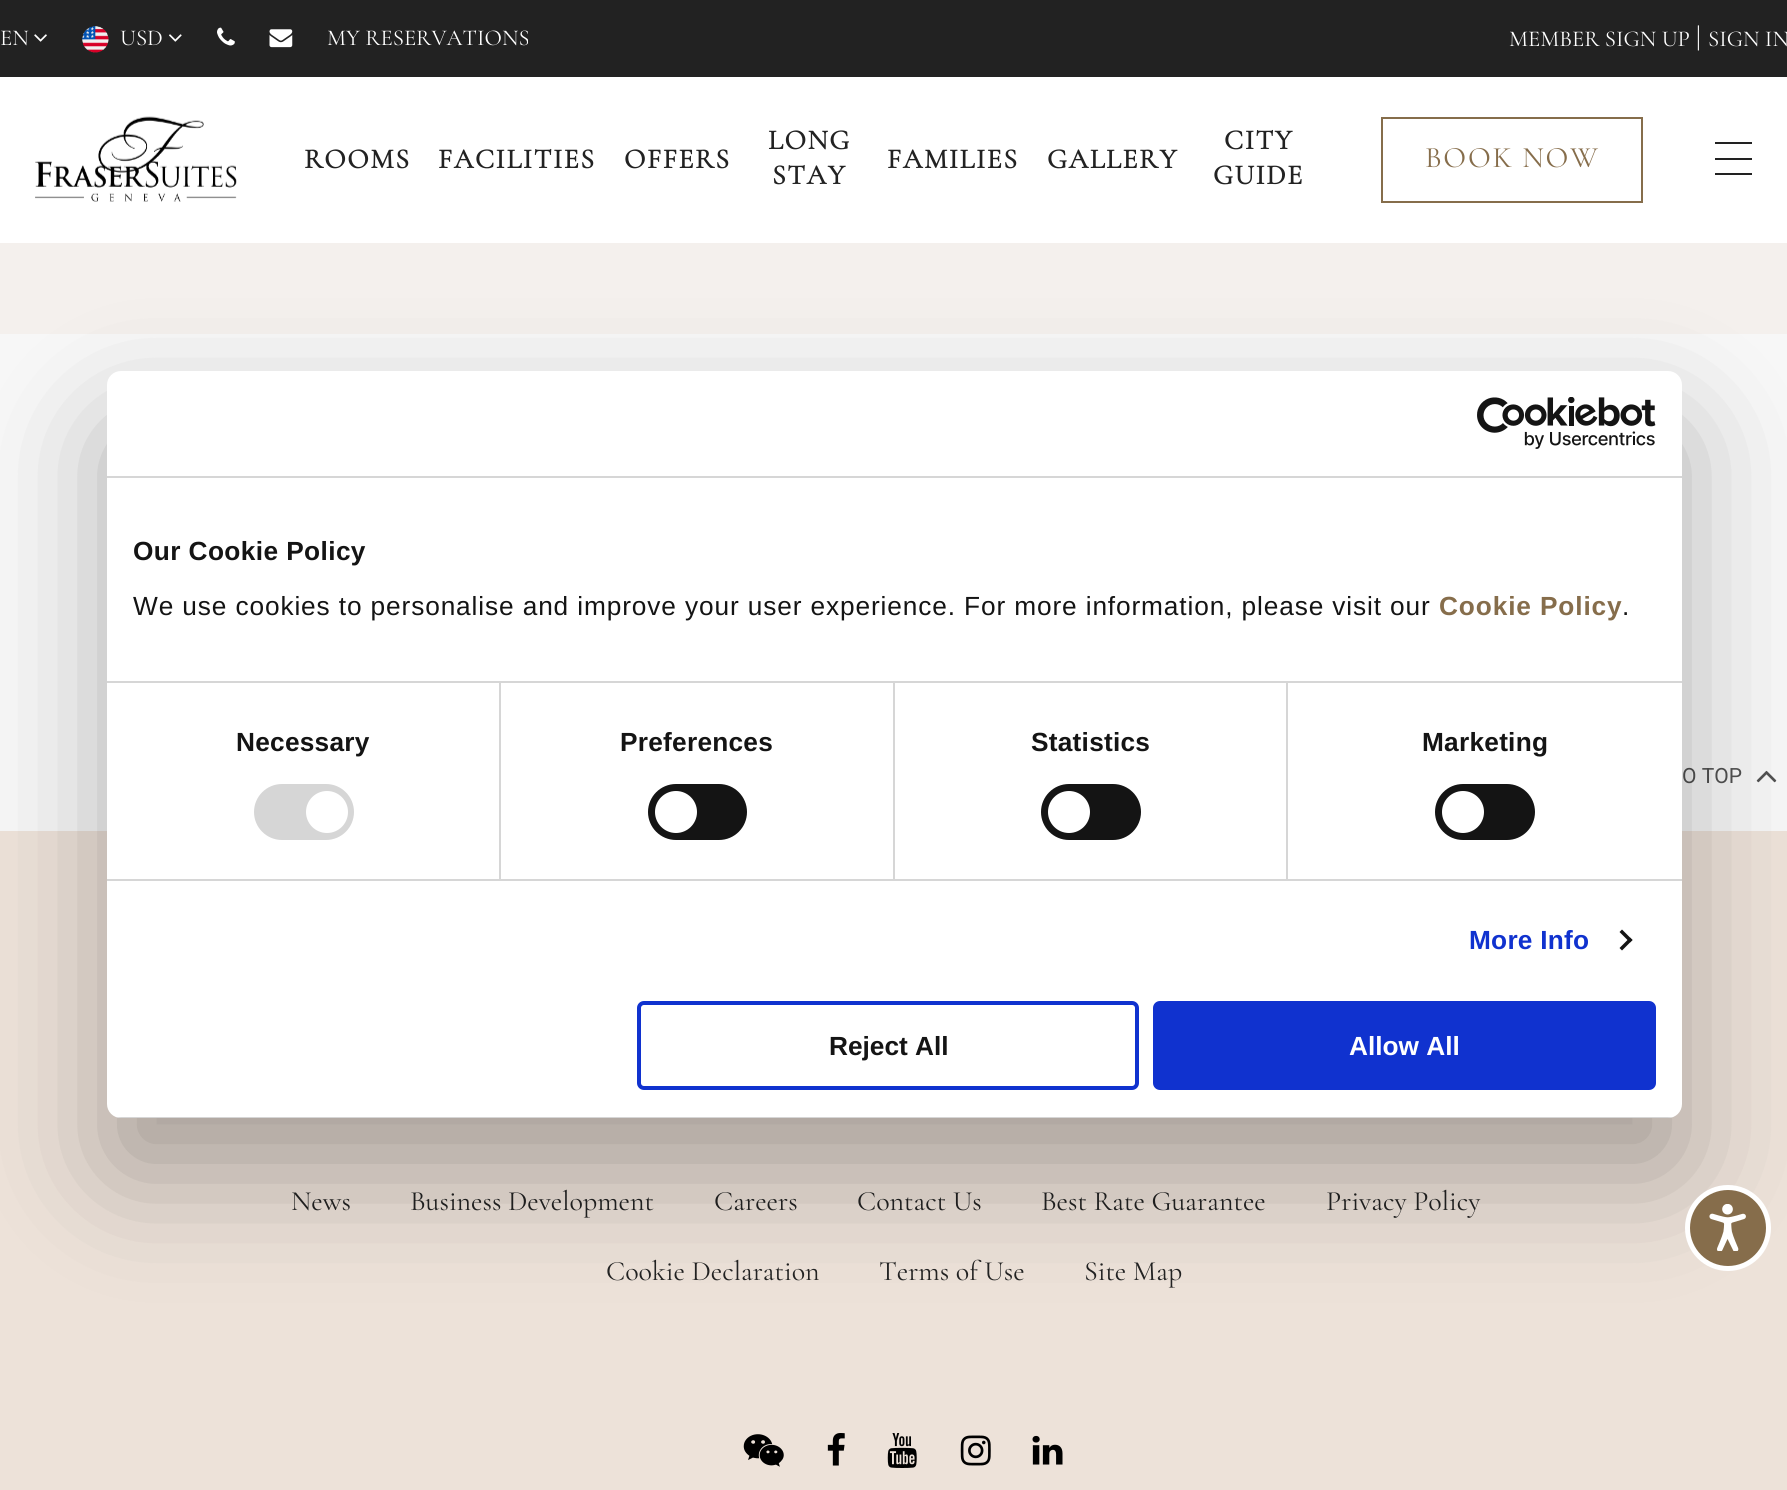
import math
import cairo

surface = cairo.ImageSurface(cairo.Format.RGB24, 1787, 1490)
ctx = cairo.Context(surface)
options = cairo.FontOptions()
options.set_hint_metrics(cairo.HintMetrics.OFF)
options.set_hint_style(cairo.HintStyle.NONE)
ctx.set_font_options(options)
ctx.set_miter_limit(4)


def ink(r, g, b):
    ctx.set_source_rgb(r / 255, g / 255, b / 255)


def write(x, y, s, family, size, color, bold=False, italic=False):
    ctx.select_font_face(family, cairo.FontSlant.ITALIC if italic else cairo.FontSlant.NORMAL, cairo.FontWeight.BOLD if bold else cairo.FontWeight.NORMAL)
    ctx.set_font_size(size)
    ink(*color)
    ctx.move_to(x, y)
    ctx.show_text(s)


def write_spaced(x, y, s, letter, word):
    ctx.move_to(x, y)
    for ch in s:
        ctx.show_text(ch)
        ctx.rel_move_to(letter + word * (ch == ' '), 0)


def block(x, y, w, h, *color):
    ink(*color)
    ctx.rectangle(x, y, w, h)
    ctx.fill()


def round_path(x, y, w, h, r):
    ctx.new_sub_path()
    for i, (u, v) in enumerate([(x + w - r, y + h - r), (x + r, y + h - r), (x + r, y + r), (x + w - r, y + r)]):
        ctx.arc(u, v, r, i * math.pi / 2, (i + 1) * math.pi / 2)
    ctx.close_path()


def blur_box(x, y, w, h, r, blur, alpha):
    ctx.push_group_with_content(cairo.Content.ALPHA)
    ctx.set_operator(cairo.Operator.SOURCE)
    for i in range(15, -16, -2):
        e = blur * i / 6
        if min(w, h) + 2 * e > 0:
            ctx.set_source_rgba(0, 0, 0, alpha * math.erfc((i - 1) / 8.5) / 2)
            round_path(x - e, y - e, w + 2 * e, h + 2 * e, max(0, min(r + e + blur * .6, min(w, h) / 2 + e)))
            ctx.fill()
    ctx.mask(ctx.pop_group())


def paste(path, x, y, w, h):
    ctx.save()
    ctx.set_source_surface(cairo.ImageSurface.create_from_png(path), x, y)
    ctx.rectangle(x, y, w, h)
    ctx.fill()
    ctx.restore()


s1 = dict(family="Cormorant Garamond", size=22.75, color=(255, 255, 255))
s2 = dict(family="Cormorant Garamond", size=28, color=(255, 255, 255))
s3 = dict(family="Roboto", size=21, color=(81, 81, 81))
s4 = dict(family="Cormorant Garamond", size=28, color=(34, 34, 34))
s5 = dict(family="Liberation Sans", size=26.25, color=(20, 20, 20), bold=True)
s6 = dict(family="Liberation Sans", size=26.25, color=(255, 255, 255), bold=True)

ink(244, 240, 237)
ctx.paint()
block(0, 0, 1787, 77, 34, 34, 34)
write(0, 45, "EN", **s1)
paste("pic1.png", 34, 34, 13, 8)
paste("pic2.png", 82, 26, 27, 27)
write(120, 45, "USD", **s1)
paste("pic3.png", 169, 34, 13, 8)
paste("pic4.png", 217, 27, 18, 19)
paste("pic5.png", 269, 29, 24, 19)
write(327, 45, "MY RESERVATIONS", **s1)
write(1509, 46, "MEMBER SIGN UP", **s1)
write(1696, 46, "|", **s2)
write(1708, 46, "SIGN IN", **s1)
block(0, 77, 1787, 166, 255, 255, 255)
paste("pic6.png", 35, 116, 202, 86)
ctx.select_font_face("Cormorant Garamond", cairo.FontSlant.NORMAL, cairo.FontWeight.BOLD)
ctx.set_font_size(28)
ink(34, 34, 34)
write_spaced(304, 168, "ROOMS", 1.5, 0)
write_spaced(438, 168, "FACILITIES", 1.5, 0)
write_spaced(624, 168, "OFFERS", 1.5, 0)
write_spaced(768, 149, "LONG", 1.5, 0)
write_spaced(772, 184, "STAY", 1.5, 0)
write_spaced(887, 168, "FAMILIES", 1.5, 0)
write_spaced(1047, 168, "GALLERY", 1.5, 0)
write_spaced(1224, 149, "CITY", 1.5, 0)
write_spaced(1213, 184, "GUIDE", 1.5, 0)
ctx.rectangle(1382, 118, 260, 84)
ink(134, 109, 75)
ctx.stroke()
ctx.select_font_face("Cormorant Garamond")
ctx.set_font_size(29.75)
write_spaced(1425, 167, "BOOK NOW", 1.75, 0)
block(1715, 142, 37, 2, 34, 34, 34)
block(1715, 158, 37, 2, 34, 34, 34)
block(1715, 173, 37, 2, 34, 34, 34)
block(0, 334, 1787, 497, 247, 247, 247)
block(0, 831, 1787, 659, 237, 226, 217)
write(1682, 783, "O TOP", **s3)
paste("pic7.png", 1756, 770, 21, 13)
write(291, 1210, "News", **s4)
write(410, 1210, "Business Development", **s4)
write(714, 1210, "Careers", **s4)
write(857, 1210, "Contact Us", **s4)
write(1041, 1210, "Best Rate Guarantee", **s4)
write(1326, 1210, "Privacy Policy", **s4)
write(606, 1280, "Cookie Declaration", **s4)
write(879, 1280, "Terms of Use", **s4)
write(1084, 1280, "Site Map", **s4)
paste("pic8.png", 743, 1434, 41, 33)
paste("pic9.png", 827, 1433, 18, 33)
paste("pic10.png", 887, 1433, 30, 35)
paste("pic11.png", 960, 1435, 31, 31)
paste("pic12.png", 1032, 1435, 31, 30)
ink(0, 0, 0)
blur_box(107, 427, 1575, 747, 14, 59.5, 0.3)
ink(255, 255, 255)
round_path(107, 371, 1575, 747, 14)
ctx.fill()
block(107, 476, 1575, 2, 214, 214, 214)
paste("pic13.png", 1477, 397, 179, 52)
block(107, 681, 1575, 2, 214, 214, 214)
ctx.select_font_face("Liberation Sans", cairo.FontSlant.NORMAL, cairo.FontWeight.BOLD)
ctx.set_font_size(26.25)
ink(20, 20, 20)
write_spaced(133, 560, "Our Cookie Policy", 0.4, 0)
ctx.select_font_face("Liberation Sans")
write_spaced(133, 615, "We use cookies to personalise and improve your user experience. For more information, please visit our", 0.88, 0)
ctx.select_font_face("Liberation Sans", cairo.FontSlant.NORMAL, cairo.FontWeight.BOLD)
ink(134, 109, 75)
write_spaced(1439, 615, "Cookie Policy", 0.88, 0)
ctx.select_font_face("Liberation Sans")
ink(20, 20, 20)
write_spaced(1622, 615, ".", 0.88, 0)
block(107, 879, 1575, 2, 214, 214, 214)
block(499, 683, 2, 196, 214, 214, 214)
ctx.select_font_face("Liberation Sans", cairo.FontSlant.NORMAL, cairo.FontWeight.BOLD)
ink(20, 20, 20)
write_spaced(236, 751, "Necessary", 0.25, 0)
ink(214, 214, 214)
round_path(254, 784, 100, 56, 28)
ctx.fill()
ink(255, 255, 255)
ctx.arc(327, 812, 21, 0, 2 * math.pi)
ctx.fill()
block(893, 683, 2, 196, 214, 214, 214)
ink(20, 20, 20)
write_spaced(620, 751, "Preferences", 0.25, 0)
round_path(648, 784, 99, 56, 28)
ctx.fill()
ink(255, 255, 255)
ctx.arc(676, 812, 21, 0, 2 * math.pi)
ctx.fill()
block(1286, 683, 2, 196, 214, 214, 214)
ink(20, 20, 20)
write_spaced(1031, 751, "Statistics", 0.25, 0)
round_path(1041, 784, 100, 56, 28)
ctx.fill()
ink(255, 255, 255)
ctx.arc(1069, 812, 21, 0, 2 * math.pi)
ctx.fill()
ink(20, 20, 20)
write_spaced(1422, 751, "Marketing", 0.25, 0)
round_path(1435, 784, 100, 56, 28)
ctx.fill()
ink(255, 255, 255)
ctx.arc(1463, 812, 21, 0, 2 * math.pi)
ctx.fill()
ink(16, 50, 207)
write_spaced(1469, 949, "More Info", 0.25, 0)
ink(20, 20, 20)
ctx.new_path()
ctx.move_to(1622, 929.5)
ctx.line_to(1632.5, 940)
ctx.line_to(1630, 942.5)
ctx.line_to(1619.5, 932)
ctx.close_path()
ctx.fill()
ctx.new_path()
ctx.move_to(1630, 937.5)
ctx.line_to(1632.5, 940)
ctx.line_to(1622, 950.5)
ctx.line_to(1619.5, 948)
ctx.close_path()
ctx.fill()
ctx.save()
round_path(107, 371, 1575, 747, 14)
ctx.clip()
block(116, 1117, 1557, 1, 214, 214, 214)
ctx.restore()
round_path(639, 1003, 498, 85, 5)
ink(16, 50, 207)
ctx.set_line_width(4)
ctx.stroke()
write(829, 1055, "Reject All", **s5)
ink(16, 50, 207)
round_path(1155, 1003, 499, 85, 5)
ctx.fill_preserve()
ctx.stroke()
write(1349, 1055, "Allow All", **s6)
ink(134, 109, 75)
ctx.new_path()
ctx.arc(1728, 1228, 40.5, 0, 2 * math.pi)
ctx.fill_preserve()
ink(255, 255, 255)
ctx.set_line_width(5)
ctx.stroke()
paste("pic14.png", 1709, 1204, 37, 47)
surface.write_to_png("screenshot.png")
